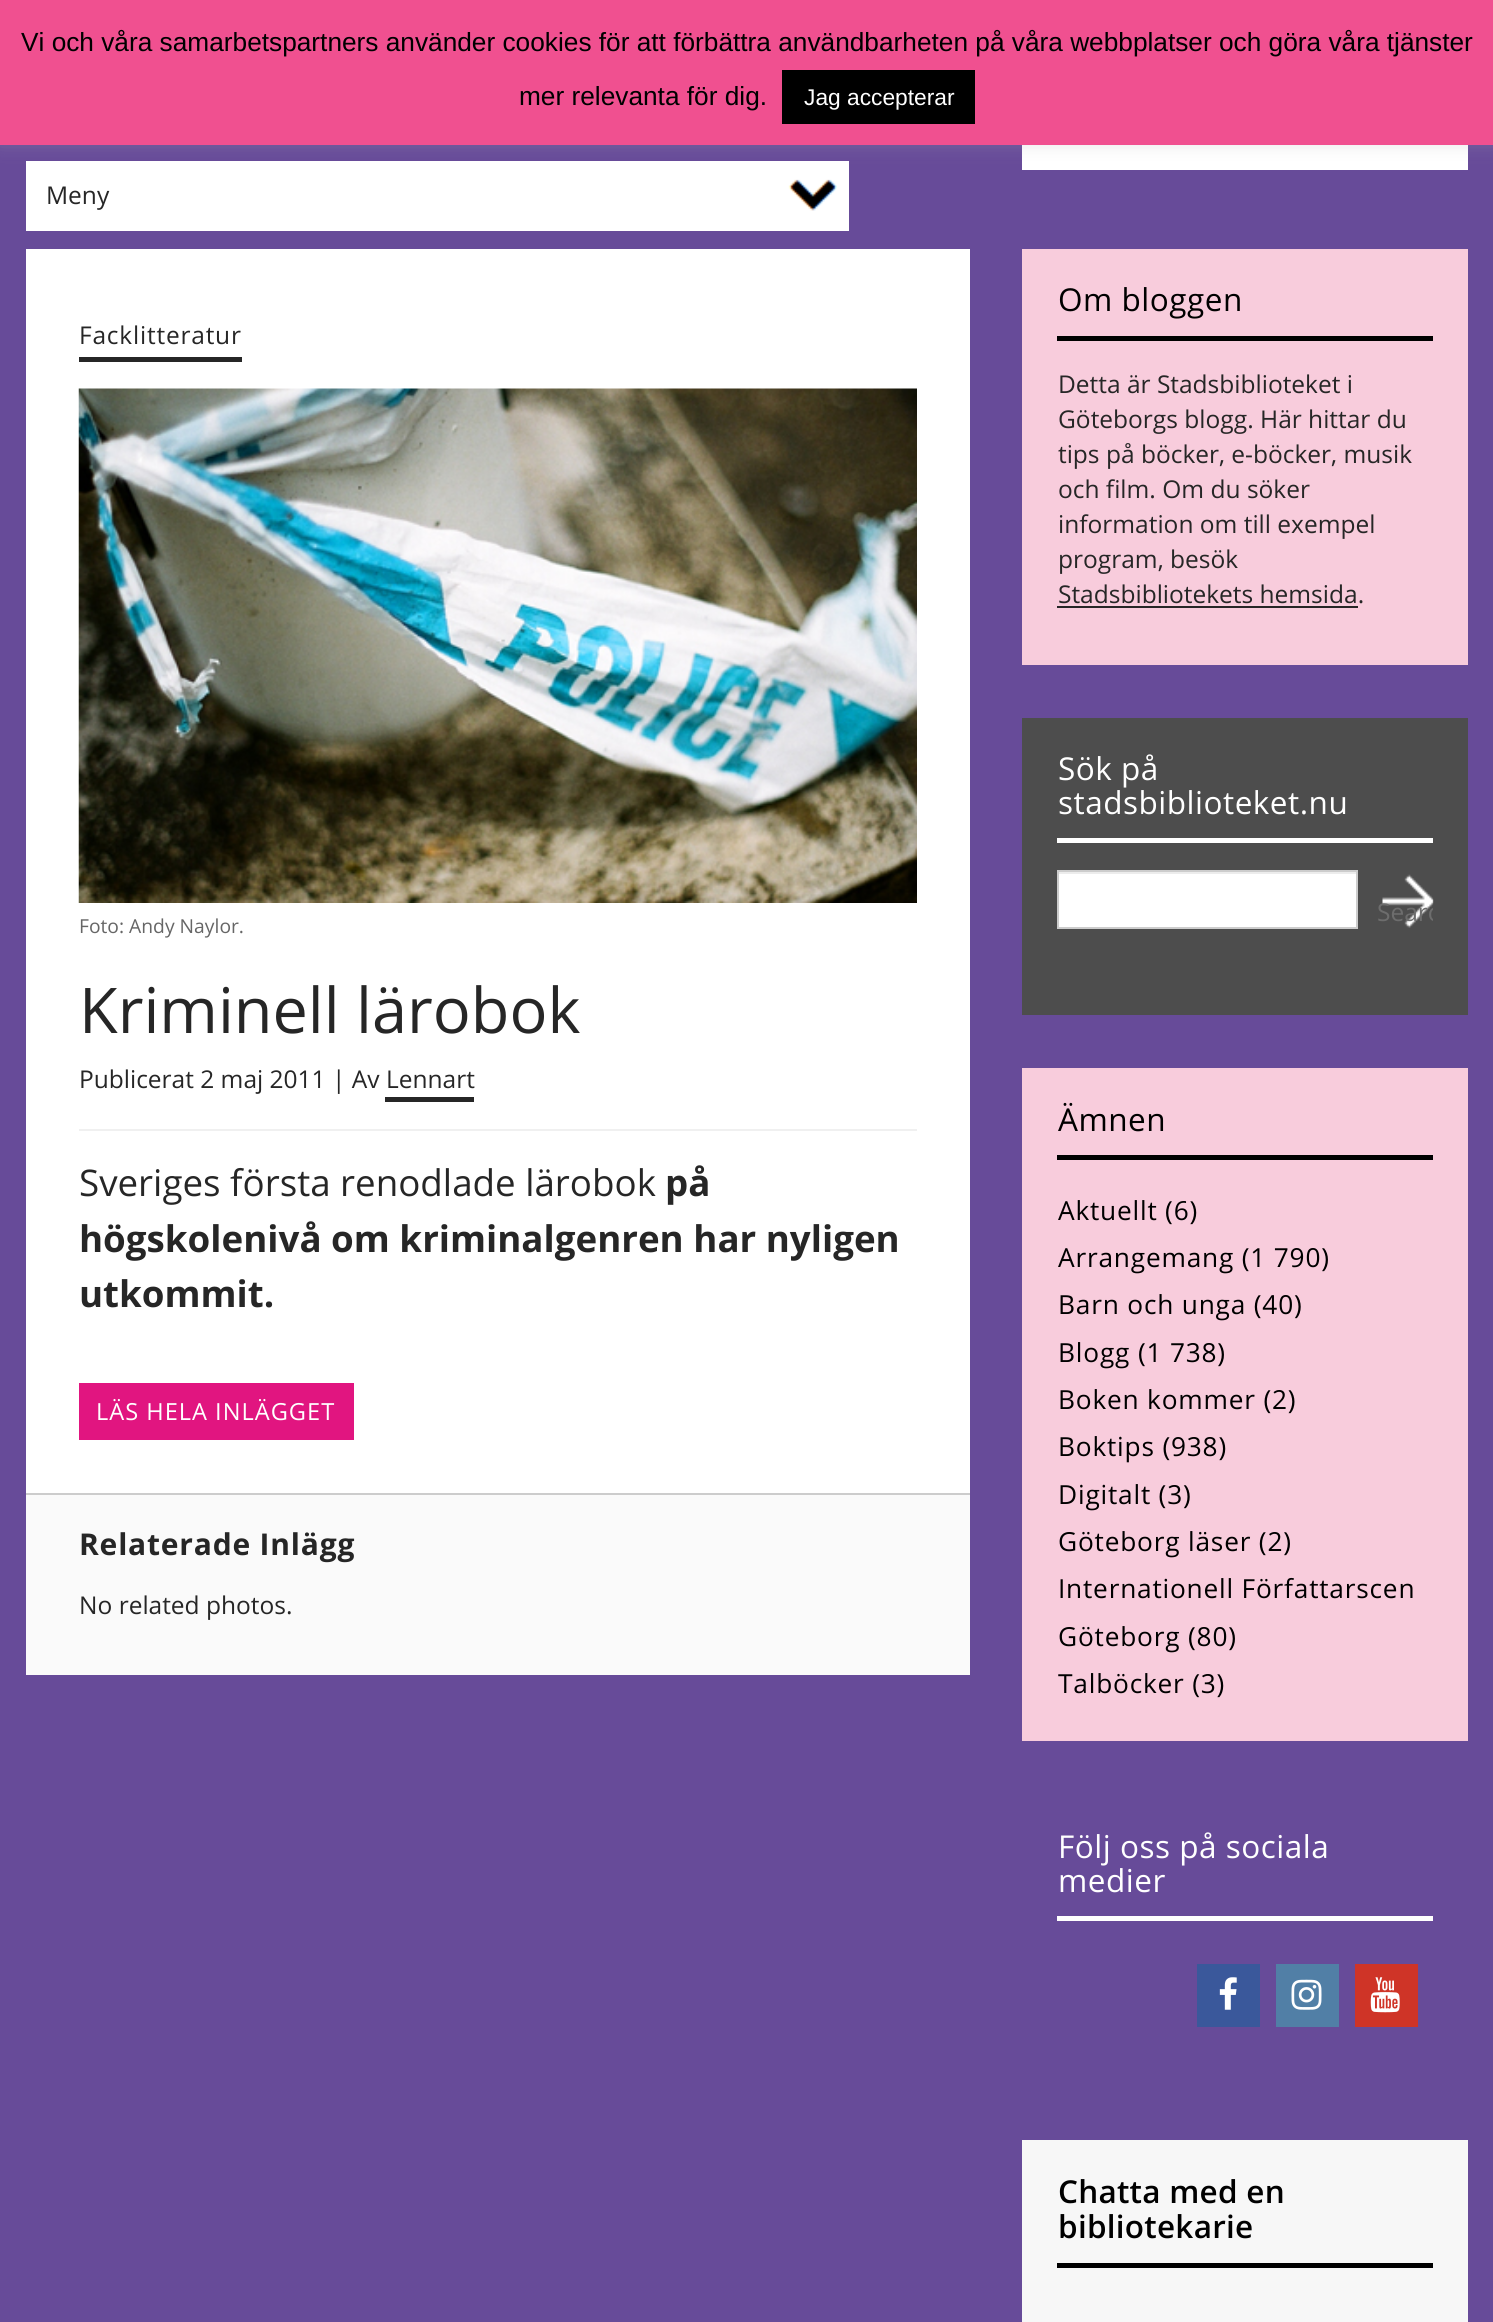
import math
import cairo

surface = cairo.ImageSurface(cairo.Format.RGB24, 1493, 2322)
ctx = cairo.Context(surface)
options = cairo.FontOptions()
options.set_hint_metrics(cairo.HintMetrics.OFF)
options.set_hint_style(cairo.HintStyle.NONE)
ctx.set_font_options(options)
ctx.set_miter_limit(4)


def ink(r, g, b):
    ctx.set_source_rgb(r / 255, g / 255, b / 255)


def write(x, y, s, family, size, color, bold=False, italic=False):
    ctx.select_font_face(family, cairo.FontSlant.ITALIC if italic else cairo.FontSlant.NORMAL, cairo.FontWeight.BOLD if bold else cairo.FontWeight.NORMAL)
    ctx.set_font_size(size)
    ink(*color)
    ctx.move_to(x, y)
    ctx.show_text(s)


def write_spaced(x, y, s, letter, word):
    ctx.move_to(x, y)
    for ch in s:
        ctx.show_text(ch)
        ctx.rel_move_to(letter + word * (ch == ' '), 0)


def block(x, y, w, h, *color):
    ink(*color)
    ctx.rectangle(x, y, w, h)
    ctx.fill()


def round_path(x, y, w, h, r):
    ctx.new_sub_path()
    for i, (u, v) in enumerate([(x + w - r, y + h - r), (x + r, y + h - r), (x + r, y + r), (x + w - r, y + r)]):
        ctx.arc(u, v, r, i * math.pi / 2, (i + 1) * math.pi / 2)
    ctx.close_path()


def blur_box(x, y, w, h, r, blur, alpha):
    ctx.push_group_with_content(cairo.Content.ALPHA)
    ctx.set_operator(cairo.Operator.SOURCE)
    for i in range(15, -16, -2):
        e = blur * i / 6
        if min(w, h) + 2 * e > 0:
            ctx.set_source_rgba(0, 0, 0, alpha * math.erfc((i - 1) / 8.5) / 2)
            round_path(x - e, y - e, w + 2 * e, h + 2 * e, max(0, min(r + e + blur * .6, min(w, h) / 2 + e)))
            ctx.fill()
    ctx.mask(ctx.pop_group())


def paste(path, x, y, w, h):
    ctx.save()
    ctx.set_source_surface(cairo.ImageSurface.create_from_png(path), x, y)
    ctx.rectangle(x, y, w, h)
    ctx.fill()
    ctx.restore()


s1 = dict(family="Liberation Sans", size=26.25, color=(0, 0, 0))
s2 = dict(family="Liberation Sans", size=22.75, color=(255, 255, 255))
s3 = dict(family="Open Sans", size=24.5, color=(38, 38, 38))
s4 = dict(family="Open Sans", size=19.25, color=(102, 102, 102))
s5 = dict(family="Open Sans", size=63, color=(38, 38, 38))
s6 = dict(family="Open Sans", size=36.7, color=(38, 38, 38))
s7 = dict(family="Open Sans", size=36.7, color=(38, 38, 38), bold=True)
s8 = dict(family="Open Sans", size=24.5, color=(109, 109, 109))

ink(103, 75, 153)
ctx.paint()
block(1022, 145, 446, 25, 255, 255, 255)
block(26, 161, 823, 70, 255, 255, 255)
ink(172, 171, 171)
blur_box(0, -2, 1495, 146, 0, 9, 0.3)
block(0, 0, 1493, 145, 240, 80, 144)
write(21, 51, "Vi och våra samarbetspartners använder cookies för att förbättra användbarheten på våra webbplatser och göra våra tjänster", **s1)
write(519, 105, "mer relevanta för dig.", **s1)
block(782, 70, 193, 54, 0, 0, 0)
write(804, 105, "Jag accepterar", **s2)
paste("pic1.png", 788, 179, 49, 32)
write(46, 204, "Meny", **s3)
block(26, 249, 944, 1244, 255, 255, 255)
ink(38, 38, 38)
write_spaced(79, 344, "Facklitteratur", 0.8, 0)
block(79, 357, 163, 5, 38, 38, 38)
paste("pic2.png", 78, 388, 839, 515)
write(79, 933, "Foto: Andy Naylor.", **s4)
write(79, 1033, "Kriminell lärobok", **s5)
write(79, 1088, "Publicerat 2 maj 2011 | Av Lennart", **s3)
block(385, 1097, 89, 5, 38, 38, 38)
block(79, 1129, 838, 2, 240, 240, 240)
write(79, 1196, "Sveriges första renodlade lärobok", **s6)
write(665, 1196, "på", **s7)
write(79, 1252, "högskolenivå om kriminalgenren har nyligen", **s7)
write(79, 1307, "utkommit.", **s7)
block(79, 1383, 275, 57, 225, 21, 128)
ctx.select_font_face("Open Sans")
ctx.set_font_size(23.6)
ink(255, 255, 255)
write_spaced(96, 1420, "LÄS HELA INLÄGGET", 1, 0)
block(26, 1495, 944, 180, 250, 250, 250)
block(26, 1493, 944, 2, 204, 204, 204)
ctx.select_font_face("Open Sans", cairo.FontSlant.NORMAL, cairo.FontWeight.BOLD)
ctx.set_font_size(30)
ink(38, 38, 38)
write_spaced(79, 1555, "Relaterade Inlägg", 0.8, 0)
write(79, 1614, "No related photos.", **s3)
block(1022, 249, 446, 416, 248, 204, 220)
block(1057, 336, 376, 5, 0, 0, 0)
ctx.set_font_size(31.5)
write_spaced(1058, 311, "Om bloggen", 0.5, 0)
write(1058, 393, "Detta är Stadsbiblioteket i", **s3)
write(1058, 428, "Göteborgs blogg. Här hittar du", **s3)
write(1058, 463, "tips på böcker, e-böcker, musik", **s3)
write(1058, 498, "och film. Om du söker", **s3)
write(1058, 533, "information om till exempel", **s3)
write(1058, 568, "program, besök", **s3)
write(1058, 603, "Stadsbibliotekets hemsida.", **s3)
block(1057, 606, 301, 2, 38, 38, 38)
block(1022, 718, 446, 297, 77, 77, 77)
block(1057, 838, 376, 5, 255, 255, 255)
ctx.set_font_size(31.5)
write_spaced(1058, 780, "Sök på", 0.5, 0)
write_spaced(1058, 814, "stadsbiblioteket.nu", 0.5, 0)
block(1059, 874, 297, 53, 255, 255, 255)
block(1059, 872, 297, 2, 236, 236, 236)
ctx.rectangle(1058, 871, 299, 57)
ink(204, 204, 204)
ctx.stroke()
paste("pic3.png", 1382, 874, 52, 54)
ctx.save()
ctx.rectangle(1377, 870, 56, 84)
ctx.clip()
write(1377, 921, "Searc", **s8)
ctx.restore()
block(1022, 1068, 446, 673, 248, 204, 220)
block(1057, 1155, 376, 5, 0, 0, 0)
write_spaced(1058, 1131, "Ämnen", 0.5, 0)
ctx.set_font_size(26.25)
write_spaced(1058, 1220, "Aktuellt (6)", 0.8, 0)
write_spaced(1058, 1267, "Arrangemang (1 790)", 0.8, 0)
write_spaced(1058, 1314, "Barn och unga (40)", 0.8, 0)
write_spaced(1058, 1362, "Blogg (1 738)", 0.8, 0)
write_spaced(1058, 1409, "Boken kommer (2)", 0.8, 0)
write_spaced(1058, 1456, "Boktips (938)", 0.8, 0)
write_spaced(1058, 1504, "Digitalt (3)", 0.8, 0)
write_spaced(1058, 1551, "Göteborg läser (2)", 0.8, 0)
write_spaced(1058, 1598, "Internationell Författarscen", 0.8, 0)
write_spaced(1058, 1646, "Göteborg (80)", 0.8, 0)
write_spaced(1058, 1693, "Talböcker (3)", 0.8, 0)
block(1057, 1916, 376, 5, 255, 255, 255)
ctx.set_font_size(31.5)
write_spaced(1058, 1858, "Följ oss på sociala", 0.5, 0)
write_spaced(1058, 1892, "medier", 0.5, 0)
block(1197, 1964, 63, 63, 58, 88, 155)
paste("pic4.png", 1219, 1977, 18, 33)
block(1276, 1964, 63, 63, 81, 127, 166)
paste("pic5.png", 1291, 1979, 31, 31)
block(1355, 1964, 63, 63, 207, 52, 39)
paste("pic6.png", 1370, 1977, 30, 36)
block(1022, 2140, 446, 182, 247, 247, 247)
block(1057, 2263, 376, 5, 0, 0, 0)
ctx.select_font_face("Open Sans SemiBold")
write_spaced(1058, 2203, "Chatta med en", 0.25, 0)
write_spaced(1058, 2238, "bibliotekarie", 0.25, 0)
surface.write_to_png("screenshot.png")
